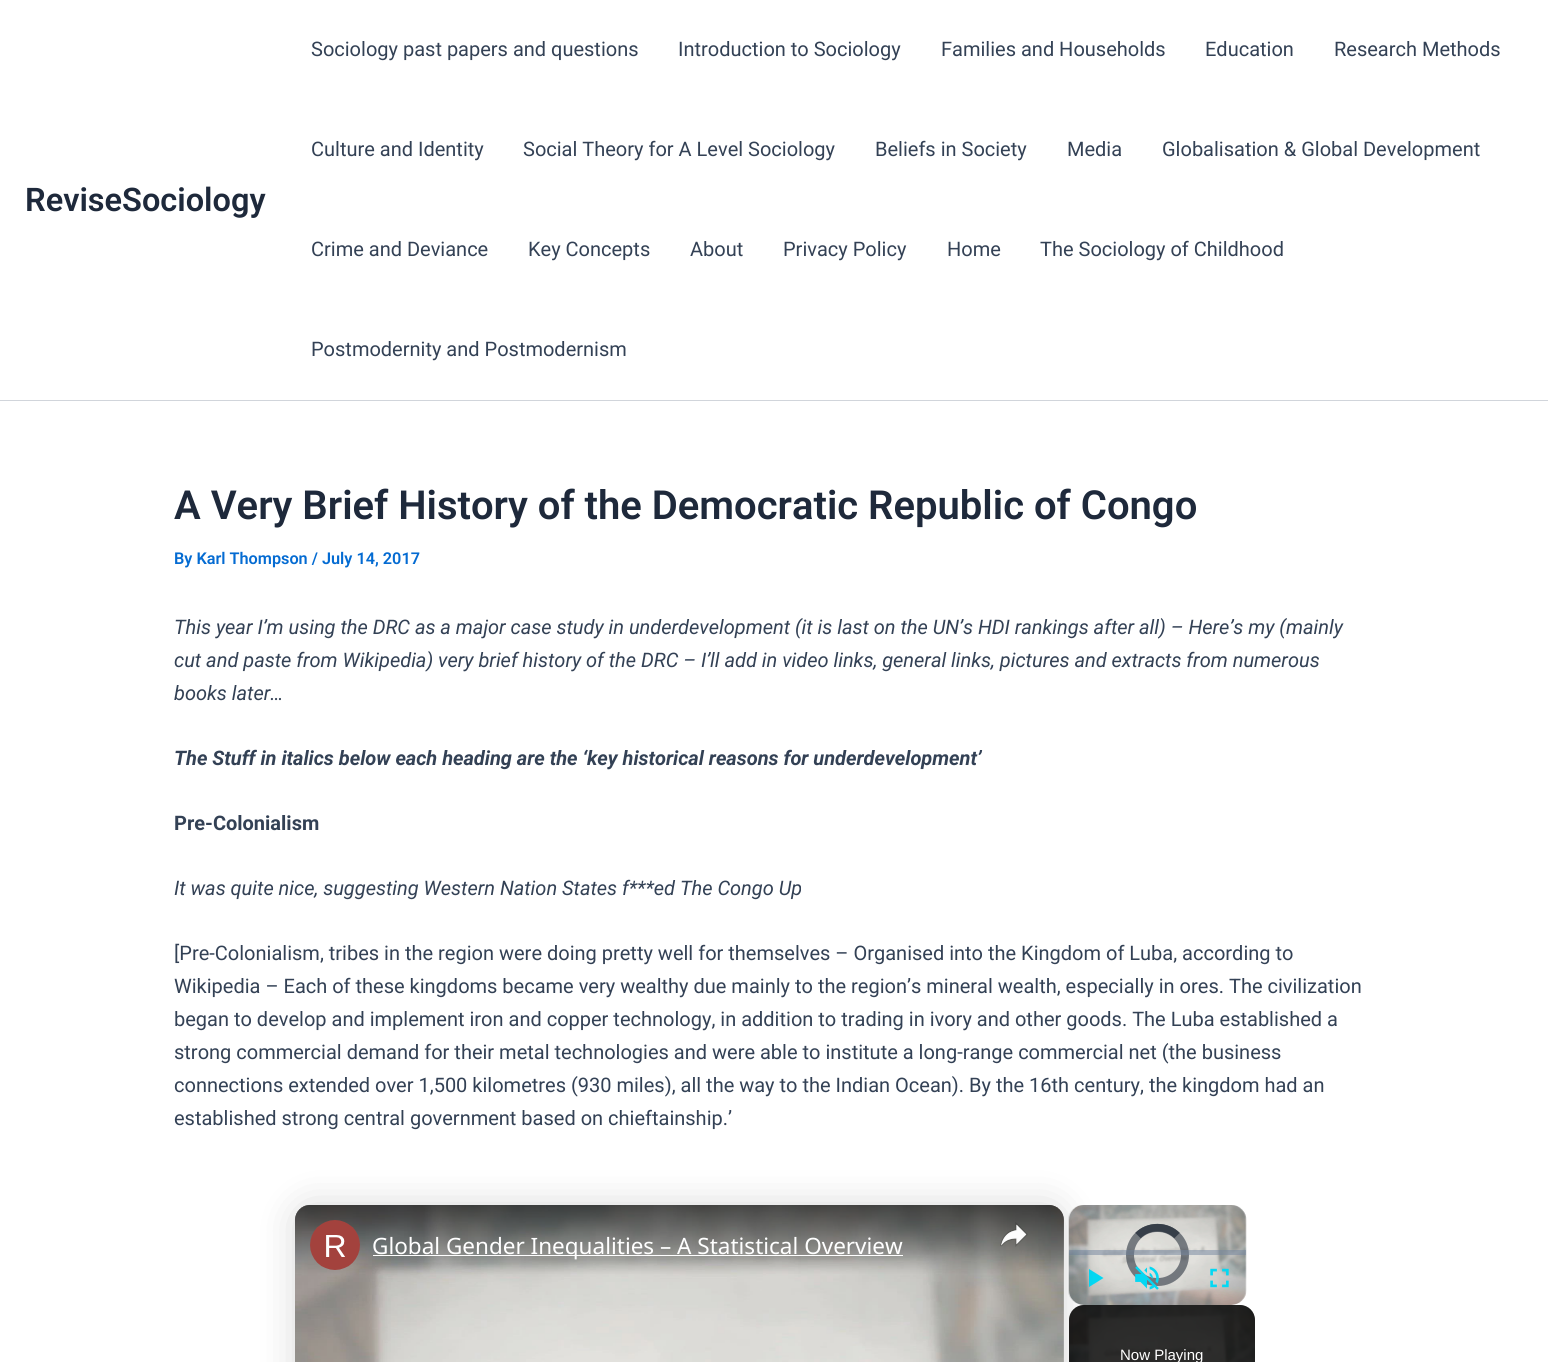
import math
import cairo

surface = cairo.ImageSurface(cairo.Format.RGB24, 1548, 1362)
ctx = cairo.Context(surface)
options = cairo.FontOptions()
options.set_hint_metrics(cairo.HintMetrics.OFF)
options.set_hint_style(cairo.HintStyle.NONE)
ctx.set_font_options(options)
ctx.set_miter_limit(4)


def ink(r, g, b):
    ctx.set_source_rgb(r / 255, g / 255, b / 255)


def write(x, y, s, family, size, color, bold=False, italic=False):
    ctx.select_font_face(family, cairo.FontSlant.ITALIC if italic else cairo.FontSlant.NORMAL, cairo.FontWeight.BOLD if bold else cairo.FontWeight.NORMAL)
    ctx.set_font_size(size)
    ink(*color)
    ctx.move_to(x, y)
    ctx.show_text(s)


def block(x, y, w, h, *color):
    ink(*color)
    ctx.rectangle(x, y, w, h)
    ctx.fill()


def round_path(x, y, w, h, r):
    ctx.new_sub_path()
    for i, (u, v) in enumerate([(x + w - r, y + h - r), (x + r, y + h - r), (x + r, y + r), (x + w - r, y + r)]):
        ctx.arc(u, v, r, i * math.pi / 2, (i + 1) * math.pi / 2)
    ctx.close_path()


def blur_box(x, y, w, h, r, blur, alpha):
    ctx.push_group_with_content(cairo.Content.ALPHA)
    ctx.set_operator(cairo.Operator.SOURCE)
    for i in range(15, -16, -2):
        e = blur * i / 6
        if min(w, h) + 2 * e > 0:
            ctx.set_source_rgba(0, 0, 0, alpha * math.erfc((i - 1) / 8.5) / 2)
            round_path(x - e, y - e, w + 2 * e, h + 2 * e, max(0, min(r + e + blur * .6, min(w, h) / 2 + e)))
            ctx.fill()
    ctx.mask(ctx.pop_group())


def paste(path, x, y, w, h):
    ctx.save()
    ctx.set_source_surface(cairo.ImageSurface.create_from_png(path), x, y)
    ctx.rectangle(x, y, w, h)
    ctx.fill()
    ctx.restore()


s1 = dict(family="Roboto SemiBold", size=32.5, color=(30, 41, 59))
s2 = dict(family="Roboto", size=20, color=(51, 65, 85))
s3 = dict(family="Roboto SemiBold", size=40, color=(30, 41, 59))
s4 = dict(family="Roboto SemiBold", size=16.25, color=(4, 107, 210))
s5 = dict(family="Roboto", size=20, color=(51, 65, 85), italic=True)
s6 = dict(family="Roboto", size=20, color=(51, 65, 85), bold=True, italic=True)
s7 = dict(family="Roboto", size=20, color=(51, 65, 85), bold=True)
s8 = dict(family="Noto Sans", size=22.5, color=(255, 255, 255))
s9 = dict(family="Liberation Sans", size=15, color=(255, 255, 255))

ink(255, 255, 255)
ctx.paint()
block(0, 400, 1548, 1, 209, 213, 219)
write(25, 211, "ReviseSociology", **s1)
write(311, 56, "Sociology past papers and questions", **s2)
write(678, 56, "Introduction to Sociology", **s2)
write(941, 56, "Families and Households", **s2)
write(1205, 56, "Education", **s2)
write(1334, 56, "Research Methods", **s2)
write(311, 156, "Culture and Identity", **s2)
write(523, 156, "Social Theory for A Level Sociology", **s2)
write(875, 156, "Beliefs in Society", **s2)
write(1067, 156, "Media", **s2)
write(1162, 156, "Globalisation & Global Development", **s2)
write(311, 256, "Crime and Deviance", **s2)
write(528, 256, "Key Concepts", **s2)
write(690, 256, "About", **s2)
write(783, 256, "Privacy Policy", **s2)
write(947, 256, "Home", **s2)
write(1040, 256, "The Sociology of Childhood", **s2)
write(311, 356, "Postmodernity and Postmodernism", **s2)
write(174, 519, "A Very Brief History of the Democratic Republic of Congo", **s3)
write(174, 564, "By Karl Thompson / July 14, 2017", **s4)
write(174, 634, "This year I’m using the DRC as a major case study in underdevelopment (it is last on the UN’s HDI rankings after all) – Here’s my (mainly", **s5)
write(174, 667, "cut and paste from Wikipedia) very brief history of the DRC – I’ll add in video links, general links, pictures and extracts from numerous", **s5)
write(174, 700, "books later…", **s5)
write(174, 765, "The Stuff in italics below each heading are the ‘key historical reasons for underdevelopment’", **s6)
write(174, 830, "Pre-Colonialism", **s7)
write(174, 895, "It was quite nice, suggesting Western Nation States f***ed The Congo Up", **s5)
write(174, 960, "[Pre-Colonialism, tribes in the region were doing pretty well for themselves – Organised into the Kingdom of Luba, according to", **s2)
write(174, 993, "Wikipedia – Each of these kingdoms became very wealthy due mainly to the region’s mineral wealth, especially in ores. The civilization", **s2)
write(174, 1026, "began to develop and implement iron and copper technology, in addition to trading in ivory and other goods. The Luba established a", **s2)
write(174, 1059, "strong commercial demand for their metal technologies and were able to institute a long-range commercial net (the business", **s2)
write(174, 1092, "connections extended over 1,500 kilometres (930 miles), all the way to the Indian Ocean). By the 16th century, the kingdom had an", **s2)
write(174, 1125, "established strong central government based on chieftainship.’", **s2)
paste("pic2.png", 295, 1205, 769, 157)
paste("pic5.png", 1068, 1205, 179, 100)
round_path(1130, 1228, 55, 54, 27)
ctx.set_source_rgba(0.169, 0.2, 0.247, 0.59)
ctx.set_line_width(8)
ctx.stroke()
ctx.set_source_rgba(0.451, 0.522, 0.624, 0.5)
ctx.rectangle(1069, 1250, 177, 5)
ctx.fill()
ink(3, 216, 243)
ctx.new_path()
ctx.move_to(1089, 1269)
ctx.line_to(1089, 1287)
ctx.line_to(1103.5, 1278)
ctx.close_path()
ctx.fill()
ink(0, 0, 0)
round_path(1069, 1305, 186, 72, 15)
ctx.fill()
paste("pic8.png", 1069, 1305, 186, 57)
ink(0, 0, 0)
blur_box(295, 1205, 769, 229, 15, 19, 0.15)
paste("pic1.png", 295, 1205, 769, 157)
gradient = cairo.LinearGradient(679, 1205, 679, 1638)
gradient.add_color_stop_rgba(0, 0, 0, 0, 0.6)
gradient.add_color_stop_rgba(0.16, 0, 0, 0, 0)
gradient.add_color_stop_rgba(0.84, 0, 0, 0, 0)
gradient.add_color_stop_rgba(1, 0, 0, 0, 0.8)
ctx.set_source(gradient)
round_path(295, 1205, 769, 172, 15)
ctx.fill()
paste("pic3.png", 310, 1220, 50, 50)
block(373, 1255, 530, 1, 255, 255, 255)
write(372, 1254, "Global Gender Inequalities – A Statistical Overview", **s8)
paste("pic4.png", 1000, 1222, 28, 25)
ctx.new_path()
ctx.move_to(1138, 1235.5)
ctx.curve_to(1148.5, 1225, 1166.5, 1225, 1177, 1235.5)
ctx.set_source_rgba(0.169, 0.2, 0.247, 0.59)
ctx.set_line_width(7.5)
ctx.stroke()
ctx.new_path()
ctx.move_to(1138, 1235.5)
ctx.curve_to(1148.5, 1225, 1166.5, 1225, 1177, 1235.5)
ctx.stroke()
paste("pic6.png", 1135, 1266, 24, 24)
paste("pic7.png", 1210, 1268, 19, 20)
write(1120, 1360, "Now Playing", **s9)
surface.write_to_png("screenshot.png")
